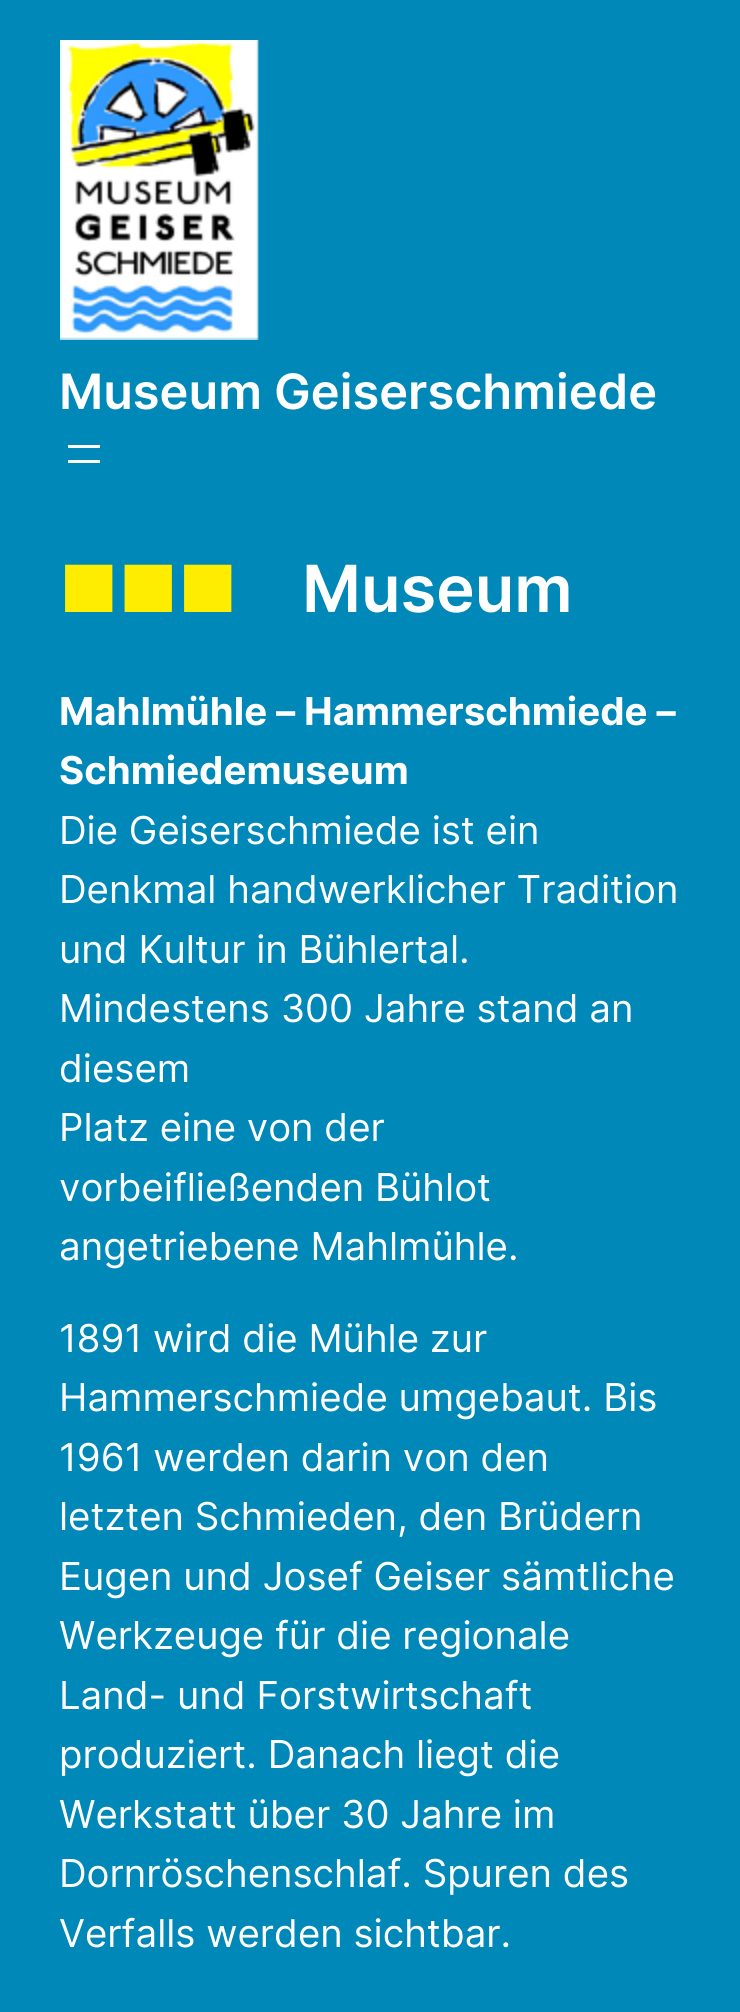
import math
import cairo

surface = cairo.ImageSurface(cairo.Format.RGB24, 740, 2012)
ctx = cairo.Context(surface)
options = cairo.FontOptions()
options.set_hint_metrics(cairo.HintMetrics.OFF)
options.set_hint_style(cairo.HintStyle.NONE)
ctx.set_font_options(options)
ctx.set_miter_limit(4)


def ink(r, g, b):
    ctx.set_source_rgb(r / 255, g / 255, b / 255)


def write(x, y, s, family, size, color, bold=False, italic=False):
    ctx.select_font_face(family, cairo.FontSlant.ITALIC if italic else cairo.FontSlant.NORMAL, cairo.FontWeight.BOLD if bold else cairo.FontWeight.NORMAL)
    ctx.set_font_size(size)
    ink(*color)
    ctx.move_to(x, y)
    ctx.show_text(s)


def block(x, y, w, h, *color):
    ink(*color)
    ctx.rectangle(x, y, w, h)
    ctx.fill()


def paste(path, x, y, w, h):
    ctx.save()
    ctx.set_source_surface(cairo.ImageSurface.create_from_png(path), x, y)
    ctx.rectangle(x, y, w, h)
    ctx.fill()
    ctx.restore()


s1 = dict(family="Inter SemiBold", size=48.75, color=(255, 255, 255))
s2 = dict(family="Inter SemiBold", size=65, color=(255, 237, 0))
s3 = dict(family="Inter SemiBold", size=65, color=(255, 255, 255))
s4 = dict(family="Inter", size=38.4, color=(255, 255, 255), bold=True)
s5 = dict(family="Inter", size=38.4, color=(255, 255, 255))

ink(0, 136, 185)
ctx.paint()
paste("pic1.png", 60, 40, 199, 300)
write(59, 409, "Museum Geiserschmiede", **s1)
block(68, 445, 32, 3, 255, 255, 255)
block(68, 460, 32, 3, 255, 255, 255)
write(59, 612, "■■■", **s2)
write(302, 612, "Museum", **s3)
write(59, 725, "Mahlmühle – Hammerschmiede –", **s4)
write(59, 784, "Schmiedemuseum", **s4)
write(59, 844, "Die Geiserschmiede ist ein", **s5)
write(59, 903, "Denkmal handwerklicher Tradition", **s5)
write(59, 963, "und Kultur in Bühlertal.", **s5)
write(59, 1022, "Mindestens 300 Jahre stand an", **s5)
write(59, 1082, "diesem", **s5)
write(59, 1141, "Platz eine von der", **s5)
write(59, 1201, "vorbeifließenden Bühlot", **s5)
write(59, 1260, "angetriebene Mahlmühle.", **s5)
write(59, 1352, "1891 wird die Mühle zur", **s5)
write(59, 1411, "Hammerschmiede umgebaut. Bis", **s5)
write(59, 1471, "1961 werden darin von den", **s5)
write(59, 1530, "letzten Schmieden, den Brüdern", **s5)
write(59, 1590, "Eugen und Josef Geiser sämtliche", **s5)
write(59, 1649, "Werkzeuge für die regionale", **s5)
write(59, 1709, "Land- und Forstwirtschaft", **s5)
write(59, 1768, "produziert. Danach liegt die", **s5)
write(59, 1828, "Werkstatt über 30 Jahre im", **s5)
write(59, 1887, "Dornröschenschlaf. Spuren des", **s5)
write(59, 1947, "Verfalls werden sichtbar.", **s5)
surface.write_to_png("screenshot.png")
